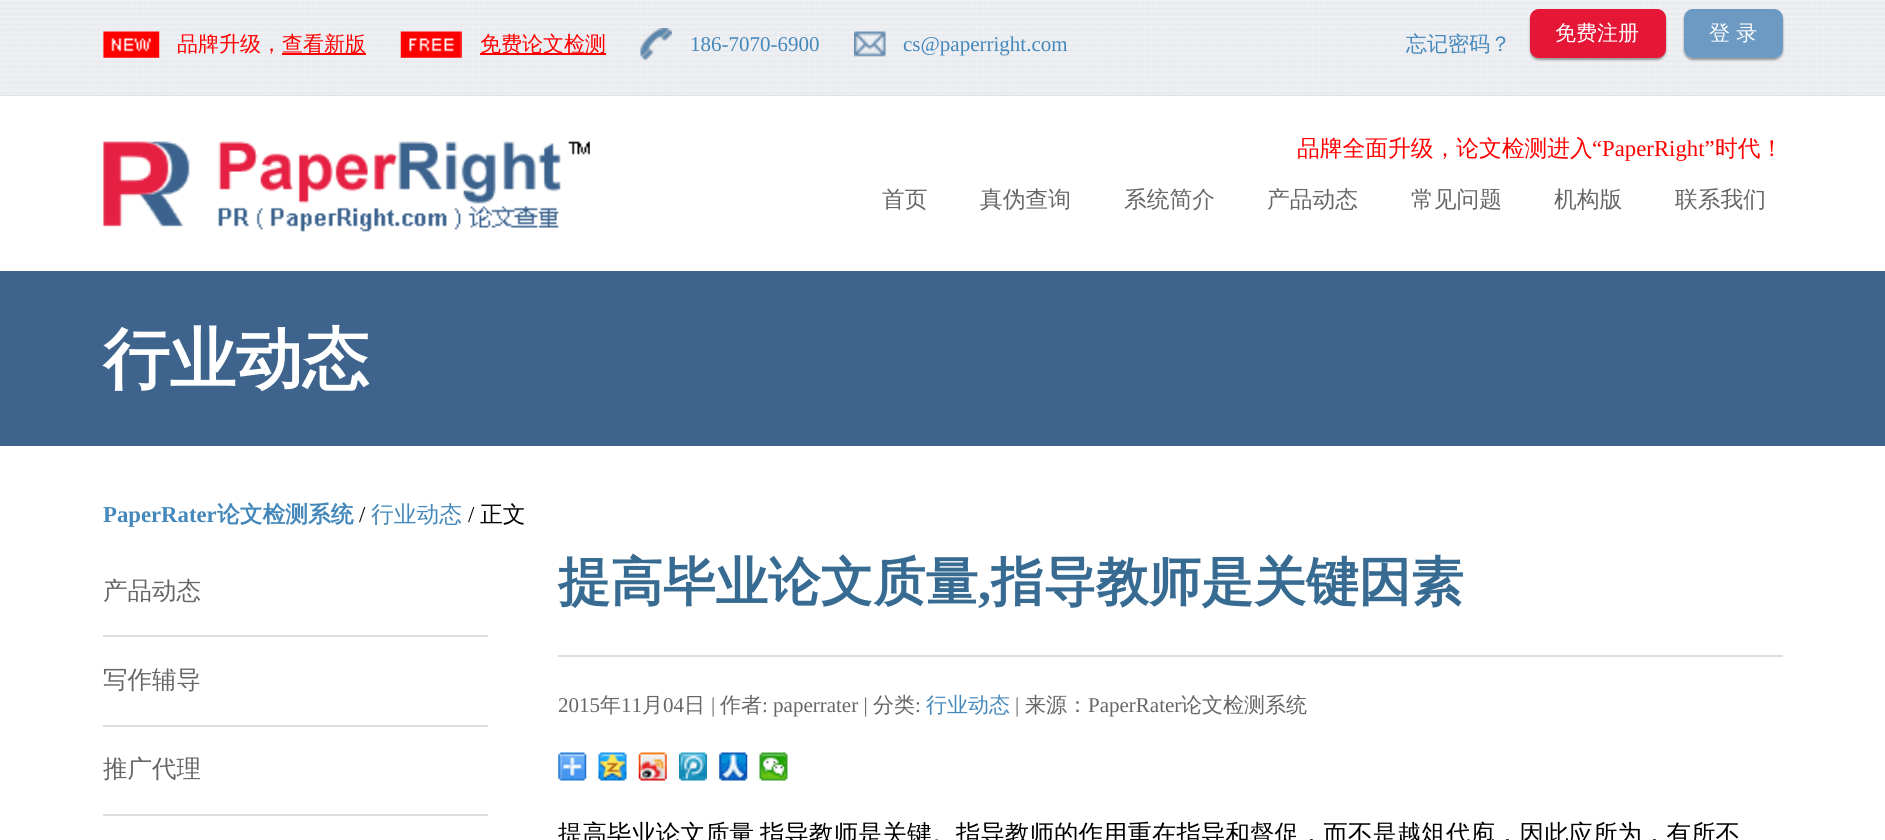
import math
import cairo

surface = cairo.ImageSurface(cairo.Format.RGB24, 1885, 840)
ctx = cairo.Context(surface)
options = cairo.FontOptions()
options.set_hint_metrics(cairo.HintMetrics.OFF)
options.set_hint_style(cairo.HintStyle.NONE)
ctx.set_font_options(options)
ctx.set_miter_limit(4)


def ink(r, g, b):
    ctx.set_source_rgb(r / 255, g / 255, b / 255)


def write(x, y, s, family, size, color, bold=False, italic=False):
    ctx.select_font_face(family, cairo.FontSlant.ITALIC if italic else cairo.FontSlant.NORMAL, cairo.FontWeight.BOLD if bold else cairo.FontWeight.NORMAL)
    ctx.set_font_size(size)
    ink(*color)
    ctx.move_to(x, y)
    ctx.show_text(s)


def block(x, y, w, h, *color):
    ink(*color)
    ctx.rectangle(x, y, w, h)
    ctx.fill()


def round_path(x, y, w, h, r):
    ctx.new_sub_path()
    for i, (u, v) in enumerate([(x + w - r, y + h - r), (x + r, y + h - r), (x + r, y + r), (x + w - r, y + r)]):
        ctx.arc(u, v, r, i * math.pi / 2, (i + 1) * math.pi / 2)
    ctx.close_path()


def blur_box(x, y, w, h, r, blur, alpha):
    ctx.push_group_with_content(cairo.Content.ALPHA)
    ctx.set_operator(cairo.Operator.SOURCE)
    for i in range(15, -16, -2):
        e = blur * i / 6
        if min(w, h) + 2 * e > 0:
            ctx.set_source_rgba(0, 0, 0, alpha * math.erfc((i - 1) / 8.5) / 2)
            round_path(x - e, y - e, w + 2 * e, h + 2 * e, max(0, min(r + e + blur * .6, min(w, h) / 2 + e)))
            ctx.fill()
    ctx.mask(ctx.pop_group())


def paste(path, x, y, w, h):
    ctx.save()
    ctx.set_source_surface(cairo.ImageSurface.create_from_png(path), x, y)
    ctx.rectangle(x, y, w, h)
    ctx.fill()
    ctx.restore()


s1 = dict(family="WenQuanYi Zen Hei Medium", size=21, color=(255, 0, 0))
s2 = dict(family="Liberation Serif", size=21, color=(68, 136, 187))
s3 = dict(family="WenQuanYi Zen Hei Medium", size=21, color=(68, 136, 187))
s4 = dict(family="WenQuanYi Zen Hei Medium", size=21, color=(255, 255, 255))
s5 = dict(family="WenQuanYi Zen Hei Medium", size=22.75, color=(255, 0, 0))
s6 = dict(family="Liberation Serif", size=22.75, color=(255, 0, 0))
s7 = dict(family="WenQuanYi Zen Hei Medium", size=22.75, color=(102, 102, 102))
s8 = dict(family="WenQuanYi Zen Hei", size=66.5, color=(255, 255, 255), bold=True)
s9 = dict(family="Liberation Serif", size=22.75, color=(68, 136, 187), bold=True)
s10 = dict(family="WenQuanYi Zen Hei", size=22.75, color=(68, 136, 187), bold=True)
s11 = dict(family="Liberation Serif", size=22.75, color=(0, 0, 0))
s12 = dict(family="WenQuanYi Zen Hei Medium", size=22.75, color=(68, 136, 187))
s13 = dict(family="WenQuanYi Zen Hei Medium", size=22.75, color=(0, 0, 0))
s14 = dict(family="WenQuanYi Zen Hei Medium", size=24.5, color=(102, 102, 102))
s15 = dict(family="WenQuanYi Zen Hei", size=52.5, color=(55, 107, 146), bold=True)
s16 = dict(family="Liberation Serif", size=52.5, color=(55, 107, 146), bold=True)
s17 = dict(family="Liberation Serif", size=21, color=(102, 102, 102))
s18 = dict(family="WenQuanYi Zen Hei Medium", size=21, color=(102, 102, 102))
s19 = dict(family="WenQuanYi Zen Hei Medium", size=24.5, color=(0, 0, 0))

ink(255, 255, 255)
ctx.paint()
paste("pic1.png", 0, 0, 1885, 95)
block(0, 95, 1885, 1, 223, 224, 226)
paste("pic2.png", 103, 31, 57, 27)
write(177, 51, "品牌升级，", **s1)
block(282, 53, 84, 2, 255, 0, 0)
write(282, 51, "查看新版", **s1)
paste("pic3.png", 400, 31, 62, 27)
block(480, 53, 126, 2, 255, 0, 0)
write(480, 51, "免费论文检测", **s1)
paste("pic4.png", 640, 28, 32, 32)
write(690, 51, "186-7070-6900", **s2)
paste("pic5.png", 854, 31, 32, 26)
write(903, 51, "cs@paperright.com", **s2)
write(1406, 51, "忘记密码？", **s3)
ink(153, 153, 153)
blur_box(1530, 11, 136, 49, 9, 1, 1)
ink(229, 22, 54)
round_path(1530, 9, 136, 49, 9)
ctx.fill()
write(1555, 40, "免费注册", **s4)
ctx.save()
ctx.set_fill_rule(cairo.FillRule.EVEN_ODD)
ctx.new_path()
ctx.move_to(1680, 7)
ctx.line_to(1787, 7)
ctx.line_to(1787, 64)
ctx.line_to(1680, 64)
ctx.close_path()
ctx.move_to(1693, 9)
ctx.line_to(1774, 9)
ctx.curve_to(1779, 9, 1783, 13, 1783, 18)
ctx.line_to(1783, 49)
ctx.curve_to(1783, 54, 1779, 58, 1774, 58)
ctx.line_to(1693, 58)
ctx.curve_to(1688, 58, 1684, 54, 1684, 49)
ctx.line_to(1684, 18)
ctx.curve_to(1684, 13, 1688, 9, 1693, 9)
ctx.close_path()
ctx.clip()
ink(153, 153, 153)
blur_box(1684, 11, 99, 49, 9, 1, 1)
ctx.restore()
ink(109, 154, 194)
round_path(1684, 9, 99, 49, 9)
ctx.fill()
write(1709, 40, "登 录", **s4)
paste("pic6.png", 103, 141, 487, 91)
write(1297, 156, "品牌全面升级，论文检测进入", **s5)
write(1592, 156, "“PaperRight”", **s6)
write(1715, 156, "时代！", **s5)
write(882, 207, "首页", **s7)
write(980, 207, "真伪查询", **s7)
write(1124, 207, "系统简介", **s7)
write(1267, 207, "产品动态", **s7)
write(1411, 207, "常见问题", **s7)
write(1554, 207, "机构版", **s7)
write(1675, 207, "联系我们", **s7)
block(0, 271, 1885, 175, 62, 99, 141)
write(103, 382, "行业动态", **s8)
write(103, 522, "PaperRater", **s9)
write(217, 522, "论文检测系统", **s10)
write(359, 522, "/", **s11)
write(371, 522, "行业动态", **s12)
write(468, 522, "/", **s11)
write(480, 522, "正文", **s13)
write(103, 599, "产品动态", **s14)
block(103, 635, 385, 2, 221, 221, 221)
write(103, 688, "写作辅导", **s14)
block(103, 725, 385, 2, 221, 221, 221)
write(103, 777, "推广代理", **s14)
block(103, 814, 385, 2, 221, 221, 221)
write(558, 600, "提高毕业论文质量", **s15)
write(978, 600, ",", **s16)
write(991, 600, "指导教师是关键因素", **s15)
block(558, 655, 1225, 2, 221, 221, 221)
write(558, 712, "2015", **s17)
write(600, 712, "年", **s18)
write(621, 712, "11", **s17)
write(642, 712, "月", **s18)
write(663, 712, "04", **s17)
write(684, 712, "日", **s18)
write(711, 712, "|", **s17)
write(720, 712, "作者", **s18)
write(762, 712, ": paperrater |", **s17)
write(873, 712, "分类", **s18)
write(915, 712, ":", **s17)
write(926, 712, "行业动态", **s3)
write(1015, 712, "|", **s17)
write(1025, 712, "来源：", **s18)
write(1088, 712, "PaperRater", **s17)
write(1181, 712, "论文检测系统", **s18)
paste("pic7.png", 558, 752, 29, 29)
paste("pic8.png", 598, 752, 29, 29)
paste("pic9.png", 638, 752, 29, 29)
paste("pic10.png", 679, 752, 28, 29)
paste("pic11.png", 719, 752, 29, 29)
paste("pic12.png", 759, 752, 29, 29)
write(558, 842, "提高毕业论文质量", **s19)
write(760, 842, "指导教师是关键。指导教师的作用重在指导和督促，而不是越俎代庖，因此应所为，有所不", **s19)
surface.write_to_png("screenshot.png")
